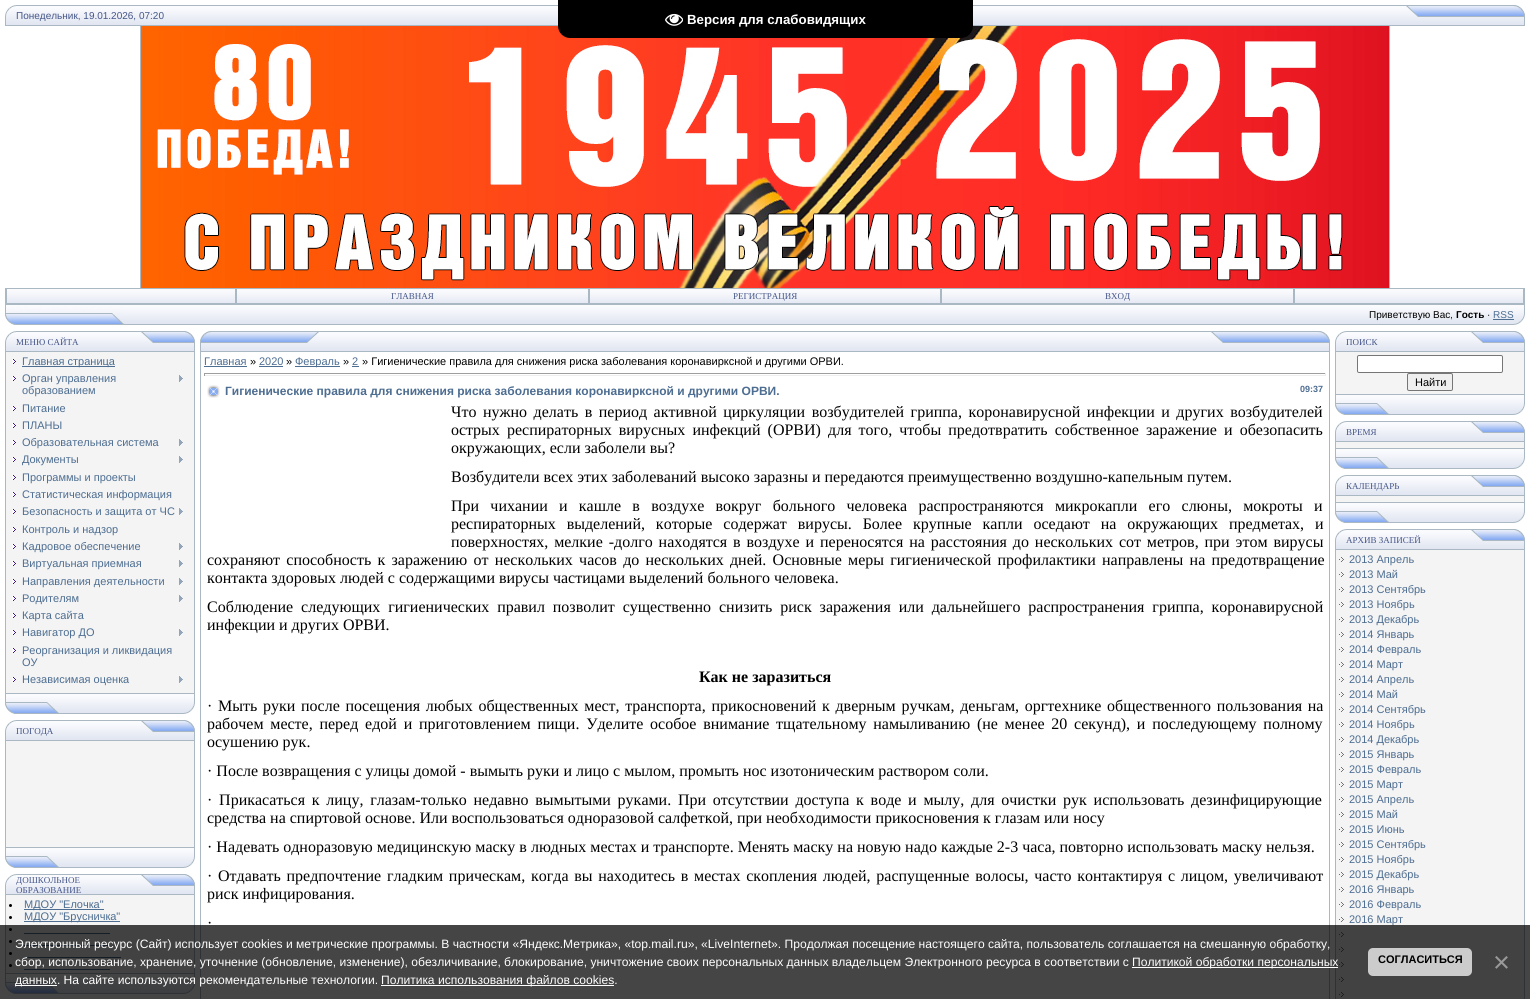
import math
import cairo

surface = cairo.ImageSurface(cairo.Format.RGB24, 1530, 999)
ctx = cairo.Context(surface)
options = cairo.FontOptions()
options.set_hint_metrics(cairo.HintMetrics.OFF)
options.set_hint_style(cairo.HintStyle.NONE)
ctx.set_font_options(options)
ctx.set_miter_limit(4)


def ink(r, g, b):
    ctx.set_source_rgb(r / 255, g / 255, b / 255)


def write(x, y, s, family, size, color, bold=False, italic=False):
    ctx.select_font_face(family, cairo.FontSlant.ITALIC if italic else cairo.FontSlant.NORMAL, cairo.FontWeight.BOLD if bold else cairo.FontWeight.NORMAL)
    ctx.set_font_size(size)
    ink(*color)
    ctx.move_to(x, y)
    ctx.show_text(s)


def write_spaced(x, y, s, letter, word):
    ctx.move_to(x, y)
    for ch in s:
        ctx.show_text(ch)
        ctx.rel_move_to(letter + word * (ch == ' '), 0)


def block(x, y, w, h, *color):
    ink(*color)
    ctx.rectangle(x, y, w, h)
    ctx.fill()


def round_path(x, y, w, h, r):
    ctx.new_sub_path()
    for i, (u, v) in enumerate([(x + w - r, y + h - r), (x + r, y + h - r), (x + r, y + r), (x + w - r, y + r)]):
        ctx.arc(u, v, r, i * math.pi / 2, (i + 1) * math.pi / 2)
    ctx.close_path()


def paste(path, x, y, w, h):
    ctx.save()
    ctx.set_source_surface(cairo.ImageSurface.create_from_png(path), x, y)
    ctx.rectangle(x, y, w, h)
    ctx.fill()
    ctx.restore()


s1 = dict(family="Liberation Sans", size=10, color=(68, 85, 136))
s2 = dict(family="Liberation Sans", size=13.25, color=(255, 255, 255), bold=True)
s3 = dict(family="Liberation Serif", size=9, color=(68, 85, 136))
s4 = dict(family="Liberation Sans", size=10, color=(0, 0, 0))
s5 = dict(family="Liberation Sans", size=10, color=(0, 0, 0), bold=True)
s6 = dict(family="Liberation Sans", size=10, color=(77, 109, 145))
s7 = dict(family="Liberation Sans", size=11, color=(77, 109, 145))
s8 = dict(family="Liberation Sans", size=11, color=(0, 0, 0))
s9 = dict(family="Liberation Sans", size=12, color=(77, 109, 145), bold=True)
s10 = dict(family="Liberation Sans", size=9, color=(77, 109, 145), bold=True)
s11 = dict(family="Liberation Serif", size=16, color=(0, 0, 0))
s12 = dict(family="Liberation Serif", size=16, color=(0, 0, 0), bold=True)
s13 = dict(family="Liberation Sans", size=12.1, color=(255, 255, 255))
s14 = dict(family="Liberation Sans", size=11, color=(0, 0, 0), bold=True)
s15 = dict(family="Liberation Sans", size=29, color=(153, 153, 153))

ink(255, 255, 255)
ctx.paint()
paste("pic1.png", 5, 5, 11, 21)
paste("pic2.png", 16, 5, 1390, 21)
write(16, 19, "Понедельник, 19.01.2026, 07:20", **s1)
paste("pic3.png", 1406, 5, 119, 21)
paste("pic5.png", 141, 26, 1248, 262)
ink(0, 0, 0)
ctx.new_path()
ctx.move_to(558, 0)
ctx.line_to(973, 0)
ctx.line_to(973, 26)
ctx.curve_to(973, 32.5, 967.5, 38, 961, 38)
ctx.line_to(570, 38)
ctx.curve_to(563.5, 38, 558, 32.5, 558, 26)
ctx.close_path()
ctx.fill()
paste("pic4.png", 665, 13, 18, 13)
write(687, 24, "Версия для слабовидящих", **s2)
block(1389, 26, 1, 262, 169, 184, 194)
block(140, 26, 1, 262, 169, 184, 194)
block(1524, 288, 1, 16, 169, 184, 194)
block(5, 288, 1, 16, 169, 184, 194)
paste("pic6.png", 7, 289, 228, 14)
ctx.rectangle(6.5, 288.5, 229, 15)
ctx.set_line_width(1)
ctx.stroke()
paste("pic7.png", 237, 289, 351, 14)
ctx.rectangle(236.5, 288.5, 352, 15)
ctx.stroke()
write(391, 299, "ГЛАВНАЯ", **s3)
paste("pic8.png", 590, 289, 350, 14)
ctx.rectangle(589.5, 288.5, 351, 15)
ink(169, 184, 194)
ctx.stroke()
write(733, 299, "РЕГИСТРАЦИЯ", **s3)
paste("pic7.png", 942, 289, 351, 14)
ctx.rectangle(941.5, 288.5, 352, 15)
ink(169, 184, 194)
ctx.stroke()
write(1105, 299, "ВХОД", **s3)
paste("pic6.png", 1295, 289, 228, 14)
ctx.rectangle(1294.5, 288.5, 229, 15)
ink(169, 184, 194)
ctx.stroke()
paste("pic9.png", 5, 304, 119, 21)
paste("pic2.png", 124, 304, 1390, 21)
write(1369, 318, "Приветствую Вас,", **s4)
write(1456, 318, "Гость", **s5)
write(1487, 318, "·", **s4)
write(1493, 318, "RSS", **s6)
block(1493, 319, 21, 1, 77, 109, 145)
paste("pic10.png", 1514, 304, 11, 21)
paste("pic1.png", 5, 331, 11, 21)
paste("pic11.png", 16, 331, 125, 21)
write(16, 345, "МЕНЮ САЙТА", **s3)
paste("pic12.png", 141, 331, 54, 21)
block(6, 352, 188, 341, 244, 244, 244)
block(194, 352, 1, 341, 169, 184, 194)
block(5, 352, 1, 341, 169, 184, 194)
paste("pic13.png", 12, 359, 4, 5)
block(22, 366, 93, 1, 77, 109, 145)
write(22, 365, "Главная страница", **s7)
paste("pic13.png", 12, 376, 4, 5)
write(22, 382, "Орган управления", **s7)
paste("pic14.png", 179, 375, 4, 7)
write(22, 394, "образованием", **s7)
paste("pic13.png", 12, 406, 4, 5)
write(22, 412, "Питание", **s7)
paste("pic13.png", 12, 423, 4, 5)
write(22, 429, "ПЛАНЫ", **s7)
paste("pic13.png", 12, 440, 4, 5)
write(22, 446, "Образовательная система", **s7)
paste("pic14.png", 179, 439, 4, 7)
paste("pic13.png", 12, 457, 4, 5)
write(22, 463, "Документы", **s7)
paste("pic14.png", 179, 456, 4, 7)
paste("pic13.png", 12, 475, 4, 5)
write(22, 481, "Программы и проекты", **s7)
paste("pic13.png", 12, 492, 4, 5)
write(22, 498, "Статистическая информация", **s7)
paste("pic13.png", 12, 509, 4, 5)
write(22, 515, "Безопасность и защита от ЧС", **s7)
paste("pic14.png", 179, 508, 4, 7)
paste("pic13.png", 12, 527, 4, 5)
write(22, 533, "Контроль и надзор", **s7)
paste("pic13.png", 12, 544, 4, 5)
write(22, 550, "Кадровое обеспечение", **s7)
paste("pic14.png", 179, 543, 4, 7)
paste("pic13.png", 12, 561, 4, 5)
write(22, 567, "Виртуальная приемная", **s7)
paste("pic14.png", 179, 560, 4, 7)
paste("pic13.png", 12, 579, 4, 5)
write(22, 585, "Направления деятельности", **s7)
paste("pic14.png", 179, 578, 4, 7)
paste("pic13.png", 12, 596, 4, 5)
write(22, 602, "Родителям", **s7)
paste("pic14.png", 179, 595, 4, 7)
paste("pic13.png", 12, 613, 4, 5)
write(22, 619, "Карта сайта", **s7)
paste("pic13.png", 12, 630, 4, 5)
write(22, 636, "Навигатор ДО", **s7)
paste("pic14.png", 179, 629, 4, 7)
paste("pic13.png", 12, 648, 4, 5)
write(22, 654, "Реорганизация и ликвидация", **s7)
write(22, 666, "ОУ", **s7)
paste("pic13.png", 12, 677, 4, 5)
write(22, 683, "Независимая оценка", **s7)
paste("pic14.png", 179, 676, 4, 7)
paste("pic15.png", 5, 693, 190, 21)
paste("pic1.png", 5, 720, 11, 21)
paste("pic11.png", 16, 720, 125, 21)
write(16, 734, "ПОГОДА", **s3)
paste("pic12.png", 141, 720, 54, 21)
block(6, 741, 188, 106, 244, 244, 244)
block(194, 741, 1, 106, 169, 184, 194)
block(5, 741, 1, 106, 169, 184, 194)
paste("pic15.png", 5, 847, 190, 21)
paste("pic1.png", 5, 874, 11, 21)
paste("pic11.png", 16, 874, 125, 21)
write(16, 883, "ДОШКОЛЬНОЕ", **s3)
write(16, 893, "ОБРАЗОВАНИЕ", **s3)
paste("pic12.png", 141, 874, 54, 21)
block(6, 895, 188, 78, 244, 244, 244)
block(194, 895, 1, 78, 169, 184, 194)
block(5, 895, 1, 78, 169, 184, 194)
ink(0, 0, 0)
ctx.arc(10.5, 905.5, 1.5, 0, 2 * math.pi)
ctx.fill()
block(24, 909, 80, 1, 77, 109, 145)
write(24, 908, "МДОУ \"Елочка\"", **s7)
ink(0, 0, 0)
ctx.new_path()
ctx.arc(10.5, 917.5, 1.5, 0, 2 * math.pi)
ctx.fill()
block(24, 921, 96, 1, 77, 109, 145)
write(24, 920, "МДОУ \"Брусничка\"", **s7)
ink(0, 0, 0)
ctx.new_path()
ctx.arc(10.5, 929.5, 1.5, 0, 2 * math.pi)
ctx.fill()
block(24, 933, 86, 1, 77, 109, 145)
ink(0, 0, 0)
ctx.arc(10.5, 941.5, 1.5, 0, 2 * math.pi)
ctx.fill()
block(24, 945, 85, 1, 77, 109, 145)
ink(0, 0, 0)
ctx.arc(10.5, 953.5, 1.5, 0, 2 * math.pi)
ctx.fill()
block(24, 957, 97, 1, 77, 109, 145)
ink(0, 0, 0)
ctx.arc(10.5, 965.5, 1.5, 0, 2 * math.pi)
ctx.fill()
block(24, 969, 86, 1, 77, 109, 145)
paste("pic15.png", 5, 973, 190, 21)
paste("pic16.png", 200, 331, 119, 21)
paste("pic17.png", 319, 331, 892, 21)
paste("pic3.png", 1211, 331, 119, 21)
block(1329, 352, 1, 647, 169, 184, 194)
block(200, 352, 1, 647, 169, 184, 194)
write(204, 365, "Главная", **s7)
block(204, 366, 43, 1, 77, 109, 145)
write(250, 365, "»", **s8)
write(259, 365, "2020", **s7)
block(259, 366, 24, 1, 77, 109, 145)
write(286, 365, "»", **s8)
block(295, 366, 45, 1, 77, 109, 145)
write(295, 365, "Февраль", **s7)
write(343, 365, "»", **s8)
write(352, 365, "2", **s7)
block(352, 366, 7, 1, 77, 109, 145)
write(362, 365, "» Гигиенические правила для снижения риска заболевания коронавирксной и другими ОРВИ.", **s8)
block(204, 373, 1122, 1, 159, 159, 159)
block(1325, 373, 1, 3, 238, 238, 238)
block(204, 375, 1122, 1, 238, 238, 238)
block(204, 373, 1, 3, 159, 159, 159)
paste("pic18.png", 207, 385, 13, 13)
write(225, 395, "Гигиенические правила для снижения риска заболевания коронавирксной и другими ОРВИ.", **s9)
write(1300, 392, "09:37", **s10)
ctx.select_font_face("Liberation Serif")
ctx.set_font_size(16)
ink(0, 0, 0)
write_spaced(451, 417, "Что нужно делать в период активной циркуляции возбудителей гриппа, коронавирусной инфекции и других возбудителей", 0, 2.5)
write_spaced(451, 435, "острых респираторных вирусных инфекций (ОРВИ) для того, чтобы предотвратить собственное заражение и обезопасить", 0, 3.1)
write(451, 453, "окружающих, если заболели вы?", **s11)
write(451, 482, "Возбудители всех этих заболеваний высоко заразны и передаются преимущественно воздушно-капельным путем.", **s11)
write_spaced(451, 511, "При чихании и кашле в воздухе вокруг больного человека распространяются микрокапли его слюны, мокроты и", 0, 7.25)
write_spaced(451, 529, "респираторных выделений, которые содержат вирусы. Более крупные капли оседают на окружающих предметах, и", 0, 6.9)
write_spaced(451, 547, "поверхностях, мелкие -долго находятся в воздухе и переносятся на расстояния до нескольких сот метров, при этом вирусы", 0, 1.9)
write_spaced(207, 565, "сохраняют способность к заражению от нескольких часов до нескольких дней. Основные меры гигиенической профилактики направлены на предотвращение", 0, 2.25)
write(207, 583, "контакта здоровых людей с содержащими вирусы частицами выделений больного человека.", **s11)
write_spaced(207, 612, "Соблюдение следующих гигиенических правил позволит существенно снизить риск заражения или дальнейшего распространения гриппа, коронавирусной", 0, 3.9)
write(207, 630, "инфекции и других ОРВИ.", **s11)
write(699, 682, "Как не заразиться", **s12)
ctx.select_font_face("Liberation Serif")
write_spaced(207, 711, "· Мыть руки после посещения любых общественных мест, транспорта, прикосновений к дверным ручкам, деньгам, оргтехнике общественного пользования на", 0, 1.7)
write_spaced(207, 729, "рабочем месте, перед едой и приготовлением пищи. Уделите особое внимание тщательному намыливанию (не менее 20 секунд), и последующему полному", 0, 2.75)
write(207, 747, "осушению рук.", **s11)
write(207, 776, "· После возвращения с улицы домой - вымыть руки и лицо с мылом, промыть нос изотоническим раствором соли.", **s11)
write_spaced(207, 805, "· Прикасаться к лицу, глазам-только недавно вымытыми руками. При отсутствии доступа к воде и мылу, для очистки рук использовать дезинфицирующие", 0, 2.75)
write(207, 823, "средства на спиртовой основе. Или воспользоваться одноразовой салфеткой, при необходимости прикосновения к глазам или носу", **s11)
write(207, 852, "· Надевать одноразовую медицинскую маску в людных местах и транспорте. Менять маску на новую надо каждые 2-3 часа, повторно использовать маску нельзя.", **s11)
write_spaced(207, 881, "· Отдавать предпочтение гладким прическам, когда вы находитесь в местах скопления людей, распущенные волосы, часто контактируя с лицом, увеличивают", 0, 1.7)
write(207, 899, "риск инфицирования.", **s11)
write(207, 928, "·", **s11)
paste("pic1.png", 1335, 331, 11, 21)
paste("pic11.png", 1346, 331, 125, 21)
write(1346, 345, "ПОИСК", **s3)
paste("pic12.png", 1471, 331, 54, 21)
block(1336, 352, 188, 42, 244, 244, 244)
block(1524, 352, 1, 42, 169, 184, 194)
block(1335, 352, 1, 42, 169, 184, 194)
ink(255, 255, 255)
round_path(1357.5, 355.5, 145, 17, 1.5)
ctx.fill_preserve()
ink(118, 118, 118)
ctx.stroke()
ink(239, 239, 239)
round_path(1407.5, 373.5, 45, 17, 1.5)
ctx.fill_preserve()
ink(118, 118, 118)
ctx.stroke()
write(1415, 386, "Найти", **s8)
paste("pic15.png", 1335, 394, 190, 21)
paste("pic1.png", 1335, 421, 11, 21)
paste("pic11.png", 1346, 421, 125, 21)
write(1346, 435, "ВРЕМЯ", **s3)
paste("pic12.png", 1471, 421, 54, 21)
block(1335, 442, 190, 6, 244, 244, 244)
block(1524, 442, 1, 6, 169, 184, 194)
block(1335, 442, 1, 6, 169, 184, 194)
paste("pic15.png", 1335, 448, 190, 21)
paste("pic1.png", 1335, 475, 11, 21)
paste("pic11.png", 1346, 475, 125, 21)
write(1346, 489, "КАЛЕНДАРЬ", **s3)
paste("pic12.png", 1471, 475, 54, 21)
block(1335, 496, 190, 6, 244, 244, 244)
block(1524, 496, 1, 6, 169, 184, 194)
block(1335, 496, 1, 6, 169, 184, 194)
paste("pic15.png", 1335, 502, 190, 21)
paste("pic1.png", 1335, 529, 11, 21)
paste("pic11.png", 1346, 529, 125, 21)
write(1346, 543, "АРХИВ ЗАПИСЕЙ", **s3)
paste("pic12.png", 1471, 529, 54, 21)
block(1336, 550, 188, 449, 244, 244, 244)
block(1524, 550, 1, 449, 169, 184, 194)
block(1335, 550, 1, 449, 169, 184, 194)
paste("pic19.png", 1339, 557, 5, 5)
write(1349, 563, "2013 Апрель", **s7)
paste("pic19.png", 1339, 572, 5, 5)
write(1349, 578, "2013 Май", **s7)
paste("pic19.png", 1339, 587, 5, 5)
write(1349, 593, "2013 Сентябрь", **s7)
paste("pic19.png", 1339, 602, 5, 5)
write(1349, 608, "2013 Ноябрь", **s7)
paste("pic19.png", 1339, 617, 5, 5)
write(1349, 623, "2013 Декабрь", **s7)
paste("pic19.png", 1339, 632, 5, 5)
write(1349, 638, "2014 Январь", **s7)
paste("pic19.png", 1339, 647, 5, 5)
write(1349, 653, "2014 Февраль", **s7)
paste("pic19.png", 1339, 662, 5, 5)
write(1349, 668, "2014 Март", **s7)
paste("pic19.png", 1339, 677, 5, 5)
write(1349, 683, "2014 Апрель", **s7)
paste("pic19.png", 1339, 692, 5, 5)
write(1349, 698, "2014 Май", **s7)
paste("pic19.png", 1339, 707, 5, 5)
write(1349, 713, "2014 Сентябрь", **s7)
paste("pic19.png", 1339, 722, 5, 5)
write(1349, 728, "2014 Ноябрь", **s7)
paste("pic19.png", 1339, 737, 5, 5)
write(1349, 743, "2014 Декабрь", **s7)
paste("pic19.png", 1339, 752, 5, 5)
write(1349, 758, "2015 Январь", **s7)
paste("pic19.png", 1339, 767, 5, 5)
write(1349, 773, "2015 Февраль", **s7)
paste("pic19.png", 1339, 782, 5, 5)
write(1349, 788, "2015 Март", **s7)
paste("pic19.png", 1339, 797, 5, 5)
write(1349, 803, "2015 Апрель", **s7)
paste("pic19.png", 1339, 812, 5, 5)
write(1349, 818, "2015 Май", **s7)
paste("pic19.png", 1339, 827, 5, 5)
write(1349, 833, "2015 Июнь", **s7)
paste("pic19.png", 1339, 842, 5, 5)
write(1349, 848, "2015 Сентябрь", **s7)
paste("pic19.png", 1339, 857, 5, 5)
write(1349, 863, "2015 Ноябрь", **s7)
paste("pic19.png", 1339, 872, 5, 5)
write(1349, 878, "2015 Декабрь", **s7)
paste("pic19.png", 1339, 887, 5, 5)
write(1349, 893, "2016 Январь", **s7)
paste("pic19.png", 1339, 902, 5, 5)
write(1349, 908, "2016 Февраль", **s7)
paste("pic19.png", 1339, 917, 5, 5)
write(1349, 923, "2016 Март", **s7)
paste("pic19.png", 1339, 932, 5, 5)
paste("pic19.png", 1339, 947, 5, 5)
paste("pic19.png", 1339, 962, 5, 5)
paste("pic19.png", 1339, 977, 5, 5)
paste("pic19.png", 1339, 992, 5, 5)
ctx.set_source_rgba(0, 0, 0, 0.73)
ctx.rectangle(0, 925, 1530, 74)
ctx.fill()
write(15, 948, "Электронный ресурс (Сайт) использует cookies и метрические программы. В частности «Яндекс.Метрика», «top.mail.ru», «LiveInternet». Продолжая посещение настоящего сайта, пользователь соглашается на смешанную обработку,", **s13)
write(15, 966, "сбор, использование, хранение, уточнение (обновление, изменение), обезличивание, блокирование, уничтожение своих персональных данных владельцем Электронного ресурса в соответствии с", **s13)
block(1132, 967, 206, 1, 255, 255, 255)
write(1132, 966, "Политикой обработки персональных", **s13)
block(15, 985, 42, 1, 255, 255, 255)
write(15, 984, "данных. На сайте используются рекомендательные технологии.", **s13)
block(381, 985, 233, 1, 255, 255, 255)
write(381, 984, "Политика использования файлов cookies.", **s13)
ctx.set_source_rgba(1, 1, 1, 0.73)
round_path(1368, 948, 104, 28, 5)
ctx.fill()
write(1378, 963, "СОГЛАСИТЬСЯ", **s14)
write(1493, 972, "×", **s15)
surface.write_to_png("screenshot.png")
